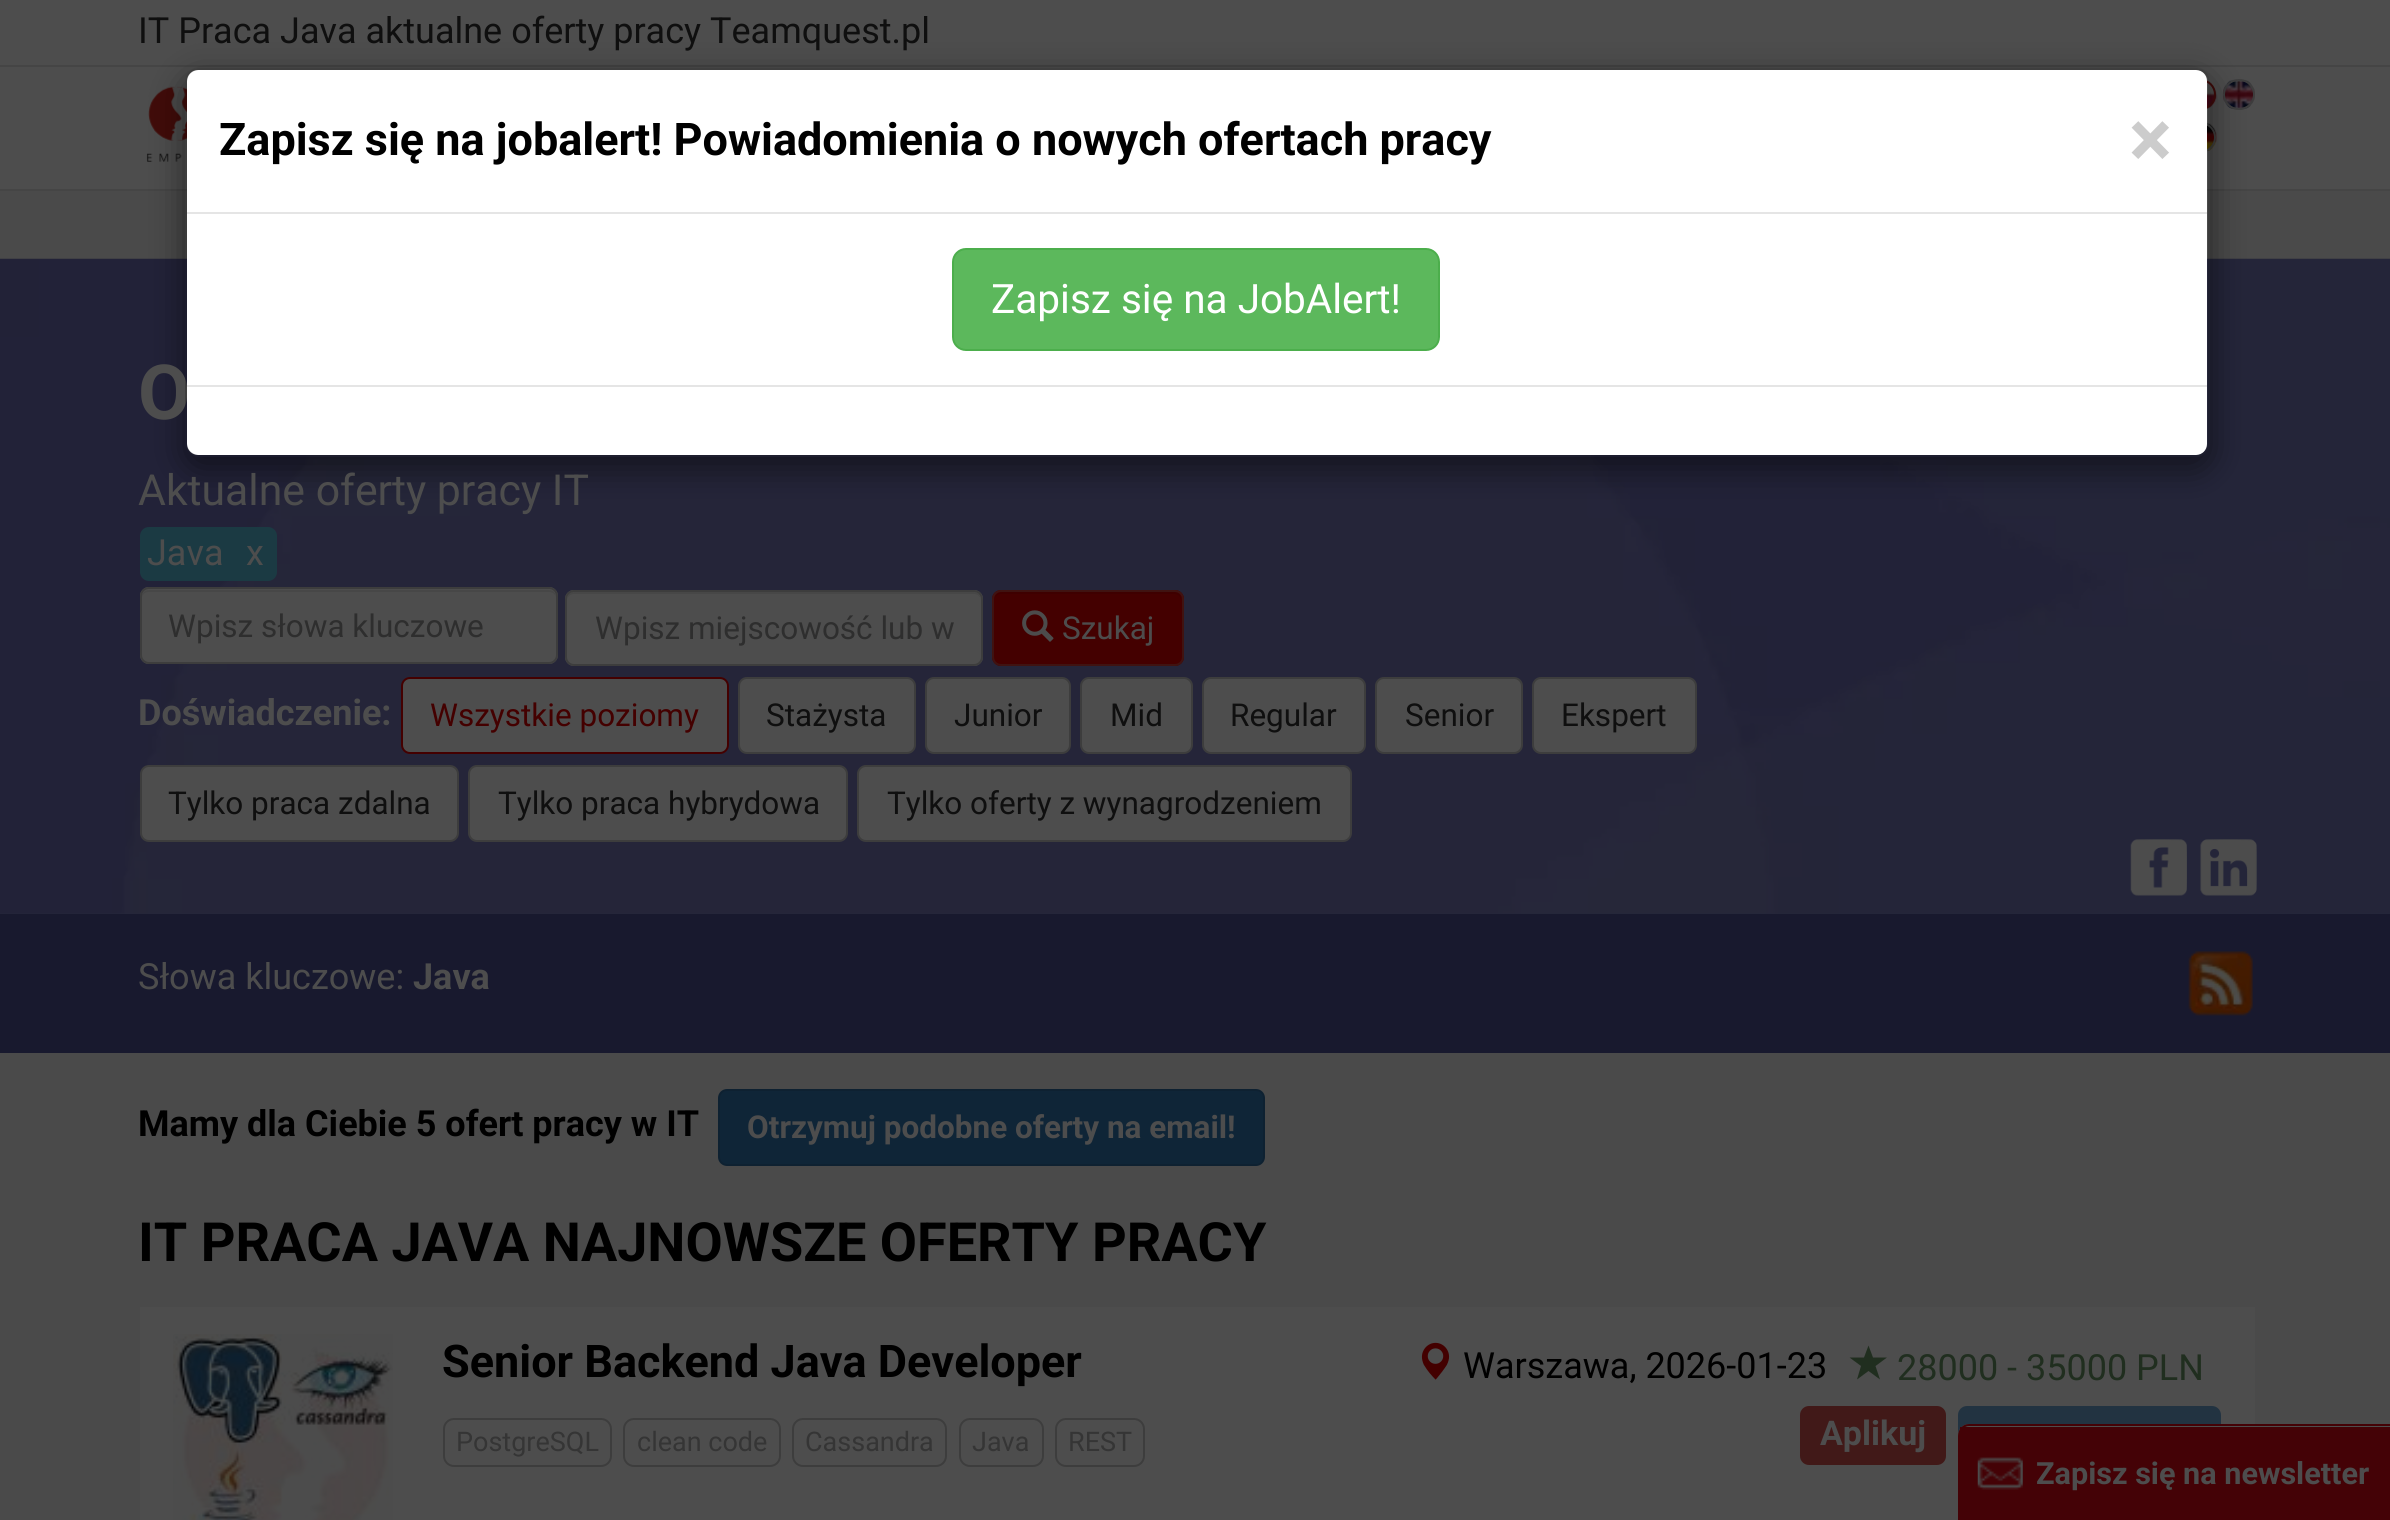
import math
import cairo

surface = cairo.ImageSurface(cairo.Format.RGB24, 2390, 1520)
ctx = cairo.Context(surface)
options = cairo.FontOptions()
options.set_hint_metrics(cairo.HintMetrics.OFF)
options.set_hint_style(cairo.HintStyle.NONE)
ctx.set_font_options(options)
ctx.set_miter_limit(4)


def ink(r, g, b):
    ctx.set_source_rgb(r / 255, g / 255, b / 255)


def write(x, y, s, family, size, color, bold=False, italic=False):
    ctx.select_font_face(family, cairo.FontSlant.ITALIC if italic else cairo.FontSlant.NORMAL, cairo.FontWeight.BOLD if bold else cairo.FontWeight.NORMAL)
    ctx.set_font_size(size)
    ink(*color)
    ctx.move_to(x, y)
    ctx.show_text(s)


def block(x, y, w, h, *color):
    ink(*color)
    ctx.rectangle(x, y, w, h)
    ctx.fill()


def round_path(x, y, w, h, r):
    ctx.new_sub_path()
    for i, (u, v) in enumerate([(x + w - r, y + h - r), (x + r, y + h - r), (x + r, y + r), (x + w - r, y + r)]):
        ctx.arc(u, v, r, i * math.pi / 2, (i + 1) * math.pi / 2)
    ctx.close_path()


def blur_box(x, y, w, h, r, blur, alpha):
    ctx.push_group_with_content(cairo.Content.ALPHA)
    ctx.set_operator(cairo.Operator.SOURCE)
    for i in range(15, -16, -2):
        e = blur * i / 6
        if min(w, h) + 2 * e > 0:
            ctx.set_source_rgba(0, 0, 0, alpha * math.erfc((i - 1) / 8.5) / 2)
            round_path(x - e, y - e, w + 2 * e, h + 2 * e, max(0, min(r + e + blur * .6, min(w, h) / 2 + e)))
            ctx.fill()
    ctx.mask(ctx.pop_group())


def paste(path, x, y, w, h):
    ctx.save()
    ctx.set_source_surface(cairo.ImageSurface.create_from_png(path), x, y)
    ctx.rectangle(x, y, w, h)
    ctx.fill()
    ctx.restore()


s1 = dict(family="Roboto", size=36, color=(15, 15, 15))
s2 = dict(family="Roboto", size=76, color=(77, 77, 77), bold=True)
s3 = dict(family="Roboto", size=45, color=(0, 0, 0), bold=True)
s4 = dict(family="Roboto", size=81, color=(204, 204, 204), bold=True)
s5 = dict(family="Roboto", size=40.5, color=(255, 255, 255))
s6 = dict(family="Roboto", size=42.75, color=(77, 77, 77))
s7 = dict(family="Roboto", size=36, color=(77, 77, 77))
s8 = dict(family="Roboto", size=31.5, color=(46, 46, 46))
s9 = dict(family="Roboto", size=31.5, color=(77, 77, 77))
s10 = dict(family="Roboto", size=36, color=(77, 77, 77), bold=True)
s11 = dict(family="Roboto", size=31.5, color=(68, 0, 0))
s12 = dict(family="Roboto", size=31.5, color=(15, 15, 15))
s13 = dict(family="Roboto", size=36, color=(0, 0, 0), bold=True)
s14 = dict(family="Roboto", size=31.5, color=(77, 77, 77), bold=True)
s15 = dict(family="Roboto", size=54, color=(0, 0, 0), bold=True)
s16 = dict(family="Roboto", size=36, color=(0, 0, 0))
s17 = dict(family="Roboto", size=36, color=(32, 46, 31))
s18 = dict(family="Roboto", size=34, color=(77, 77, 77), bold=True)
s19 = dict(family="Roboto", size=27, color=(53, 53, 53))
s20 = dict(family="Roboto", size=30.6, color=(77, 77, 77), bold=True)

ink(74, 74, 74)
ctx.paint()
block(0, 0, 2390, 189, 77, 77, 77)
block(0, 189, 2390, 2, 69, 69, 69)
block(0, 65, 2390, 2, 69, 69, 69)
write(138, 43, "IT Praca Java aktualne oferty pracy Teamquest.pl", **s1)
paste("pic1.png", 146, 86, 41, 76)
paste("pic2.png", 2207, 81, 10, 28)
ctx.arc(2200.5, 94.5, 14.5, 0, 2 * math.pi)
ink(65, 11, 9)
ctx.stroke()
paste("pic3.png", 2222, 79, 33, 30)
round_path(2224, 80, 30, 29, 14.5)
ink(61, 61, 61)
ctx.stroke()
paste("pic4.png", 2207, 122, 10, 29)
ctx.arc(2200.5, 137.5, 14.5, 0, 2 * math.pi)
ctx.stroke()
block(0, 913, 2390, 1, 37, 38, 59)
paste("pic5.png", 0, 258, 2390, 656)
ctx.save()
ctx.set_fill_rule(cairo.FillRule.EVEN_ODD)
ctx.new_path()
ctx.move_to(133, 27)
ctx.line_to(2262, 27)
ctx.line_to(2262, 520)
ctx.line_to(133, 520)
ctx.close_path()
ctx.move_to(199, 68)
ctx.line_to(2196, 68)
ctx.curve_to(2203.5, 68, 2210, 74.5, 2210, 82)
ctx.line_to(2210, 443)
ctx.curve_to(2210, 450.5, 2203.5, 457, 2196, 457)
ctx.line_to(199, 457)
ctx.curve_to(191.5, 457, 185, 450.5, 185, 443)
ctx.line_to(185, 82)
ctx.curve_to(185, 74.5, 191.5, 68, 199, 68)
ctx.close_path()
ctx.clip()
ink(0, 0, 0)
blur_box(185, 79, 2025, 389, 14, 17, 0.5)
ctx.restore()
write(138, 419, "O", **s2)
ink(255, 255, 255)
round_path(187, 70, 2020, 385, 11)
ctx.fill()
round_path(186, 69, 2023, 387, 13)
ctx.set_source_rgba(0, 0, 0, 0.2)
ctx.stroke()
block(187, 212, 2020, 2, 229, 229, 229)
write(219, 155, "Zapisz się na jobalert! Powiadomienia o nowych ofertach pracy", **s3)
write(2129, 167, "×", **s4)
ink(92, 184, 92)
round_path(953, 249, 486, 101, 13)
ctx.fill_preserve()
ink(76, 174, 76)
ctx.stroke()
write(991, 313, "Zapisz się na JobAlert!", **s5)
block(187, 385, 2020, 2, 229, 229, 229)
write(138, 505, "Aktualne oferty pracy IT", **s6)
ink(27, 58, 67)
round_path(140, 527, 137, 54, 9)
ctx.fill()
write(147, 565, "Java", **s7)
write(246, 565, "x", **s7)
round_path(140, 587, 418, 77, 9)
ctx.fill()
ink(71, 71, 71)
ctx.new_path()
ctx.move_to(148, 592)
ctx.line_to(549, 592)
ctx.curve_to(553, 592, 556, 595, 556, 598)
ctx.curve_to(556, 594, 554, 590, 549, 590)
ctx.line_to(149, 590)
ctx.curve_to(144, 590, 142, 594, 142, 598)
ctx.curve_to(142, 595, 145, 592, 148, 592)
ctx.close_path()
ctx.fill()
round_path(141, 588, 416, 75, 8)
ink(61, 61, 61)
ctx.stroke()
write(168, 637, "Wpisz słowa kluczowe", **s8)
ink(77, 77, 77)
round_path(565, 590, 418, 76, 9)
ctx.fill()
ink(71, 71, 71)
ctx.new_path()
ctx.move_to(574, 594)
ctx.line_to(974, 594)
ctx.curve_to(978, 594, 981, 597, 981, 601)
ctx.curve_to(981, 597, 979, 592, 974, 592)
ctx.line_to(574, 592)
ctx.curve_to(569, 592, 567, 597, 567, 601)
ctx.curve_to(567, 597, 570, 594, 574, 594)
ctx.close_path()
ctx.fill()
round_path(566, 591, 416, 74, 8)
ink(61, 61, 61)
ctx.stroke()
write(595, 639, "Wpisz miejscowość lub w", **s8)
ink(68, 0, 0)
round_path(992, 590, 192, 76, 9)
ctx.fill()
ink(62, 0, 0)
ctx.new_path()
ctx.move_to(1001, 594)
ctx.line_to(1174, 594)
ctx.curve_to(1178, 594, 1181, 597, 1181, 601)
ctx.line_to(1181, 599)
ctx.curve_to(1181, 595, 1178, 592, 1174, 592)
ctx.line_to(1002, 592)
ctx.curve_to(999, 592, 996, 594, 995, 597)
ctx.curve_to(997, 595, 999, 594, 1001, 594)
ctx.close_path()
ctx.fill()
round_path(993, 591, 190, 74, 8)
ink(64, 19, 17)
ctx.stroke()
paste("pic6.png", 1022, 610, 32, 32)
write(1062, 639, "Szukaj", **s9)
write(138, 725, "Doświadczenie:", **s10)
round_path(402, 678, 326, 75, 8)
ctx.fill_preserve()
ink(68, 0, 0)
ctx.stroke()
write(430, 726, "Wszystkie poziomy", **s11)
ink(77, 77, 77)
round_path(739, 678, 176, 75, 8)
ctx.fill_preserve()
ink(61, 61, 61)
ctx.stroke()
write(766, 726, "Stażysta", **s12)
ink(77, 77, 77)
round_path(926, 678, 144, 75, 8)
ctx.fill_preserve()
ink(61, 61, 61)
ctx.stroke()
write(954, 726, "Junior", **s12)
ink(77, 77, 77)
round_path(1081, 678, 111, 75, 8)
ctx.fill_preserve()
ink(61, 61, 61)
ctx.stroke()
write(1110, 726, "Mid", **s12)
ink(77, 77, 77)
round_path(1203, 678, 162, 75, 8)
ctx.fill_preserve()
ink(61, 61, 61)
ctx.stroke()
write(1230, 726, "Regular", **s12)
ink(77, 77, 77)
round_path(1376, 678, 146, 75, 8)
ctx.fill_preserve()
ink(61, 61, 61)
ctx.stroke()
write(1405, 726, "Senior", **s12)
ink(77, 77, 77)
round_path(1533, 678, 163, 75, 8)
ctx.fill_preserve()
ink(61, 61, 61)
ctx.stroke()
write(1561, 726, "Ekspert", **s12)
ink(77, 77, 77)
round_path(141, 766, 317, 75, 8)
ctx.fill_preserve()
ink(61, 61, 61)
ctx.stroke()
write(168, 814, "Tylko praca zdalna", **s12)
ink(77, 77, 77)
round_path(469, 766, 378, 75, 8)
ctx.fill_preserve()
ink(61, 61, 61)
ctx.stroke()
write(498, 814, "Tylko praca hybrydowa", **s12)
ink(77, 77, 77)
round_path(858, 766, 493, 75, 8)
ctx.fill_preserve()
ink(61, 61, 61)
ctx.stroke()
write(887, 814, "Tylko oferty z wynagrodzeniem", **s12)
paste("pic7.png", 2130, 839, 57, 57)
paste("pic8.png", 2200, 839, 57, 57)
block(0, 914, 2390, 139, 24, 25, 46)
write(138, 989, "Słowa kluczowe:", **s7)
write(413, 989, "Java", **s10)
paste("pic9.png", 2188, 951, 65, 65)
write(138, 1136, "Mamy dla Ciebie 5 ofert pracy w IT", **s13)
ink(15, 37, 55)
round_path(719, 1090, 545, 75, 8)
ctx.fill_preserve()
ink(14, 33, 49)
ctx.stroke()
write(747, 1138, "Otrzymuj podobne oferty na email!", **s14)
write(138, 1261, "IT PRACA JAVA NAJNOWSZE OFERTY PRACY", **s15)
block(140, 1307, 2115, 213, 77, 77, 77)
paste("pic10.png", 173, 1334, 220, 186)
write(442, 1377, "Senior Backend Java Developer", **s3)
paste("pic11.png", 1421, 1342, 29, 38)
write(1463, 1378, "Warszawa, 2026-01-23", **s16)
ink(32, 46, 31)
ctx.new_path()
ctx.move_to(1849.5, 1357.5)
ctx.line_to(1864, 1357.5)
ctx.line_to(1868.5, 1345.5)
ctx.line_to(1873, 1357.5)
ctx.line_to(1887, 1357.5)
ctx.line_to(1875.5, 1366)
ctx.line_to(1880, 1379.5)
ctx.line_to(1868.5, 1371)
ctx.line_to(1857, 1379.5)
ctx.line_to(1861, 1366)
ctx.close_path()
ctx.move_to(1857, 1379.5)
ctx.line_to(1857, 1379.5)
ctx.close_path()
ctx.fill()
write(1897, 1380, "28000 - 35000 PLN", **s17)
ink(65, 25, 24)
round_path(1800, 1406, 146, 59, 9)
ctx.fill()
write(1820, 1445, "Aplikuj", **s18)
ink(34, 51, 65)
round_path(1958, 1406, 263, 59, 9)
ctx.fill()
round_path(444, 1419, 167, 47, 10)
ink(61, 61, 61)
ctx.stroke()
write(456, 1451, "PostgreSQL", **s19)
round_path(624, 1419, 156, 47, 10)
ink(61, 61, 61)
ctx.stroke()
write(637, 1451, "clean code", **s19)
round_path(793, 1419, 153, 47, 10)
ink(61, 61, 61)
ctx.stroke()
write(805, 1451, "Cassandra", **s19)
round_path(960, 1419, 83, 47, 10)
ink(61, 61, 61)
ctx.stroke()
write(972, 1451, "Java", **s19)
round_path(1056, 1419, 88, 47, 10)
ink(61, 61, 61)
ctx.stroke()
write(1068, 1451, "REST", **s19)
ink(77, 77, 77)
ctx.new_path()
ctx.move_to(1969, 1424)
ctx.line_to(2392, 1424)
ctx.line_to(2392, 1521)
ctx.line_to(1958, 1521)
ctx.line_to(1958, 1435)
ctx.curve_to(1958, 1429, 1963, 1424, 1969, 1424)
ctx.close_path()
ctx.fill()
ink(68, 2, 6)
ctx.set_fill_rule(cairo.FillRule.EVEN_ODD)
ctx.new_path()
ctx.move_to(1969, 1424)
ctx.line_to(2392, 1424)
ctx.line_to(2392, 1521)
ctx.line_to(1958, 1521)
ctx.line_to(1958, 1436)
ctx.curve_to(1958, 1429, 1963, 1424, 1969, 1424)
ctx.close_path()
ctx.move_to(1969, 1426)
ctx.line_to(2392, 1426)
ctx.line_to(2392, 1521)
ctx.line_to(1960, 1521)
ctx.line_to(1960, 1436)
ctx.curve_to(1960, 1431, 1964, 1426, 1969, 1426)
ctx.close_path()
ctx.fill()
block(1960, 1427, 430, 93, 68, 2, 6)
paste("pic12.png", 1977, 1457, 46, 33)
write(2036, 1484, "Zapisz się na newsletter", **s20)
surface.write_to_png("screenshot.png")
